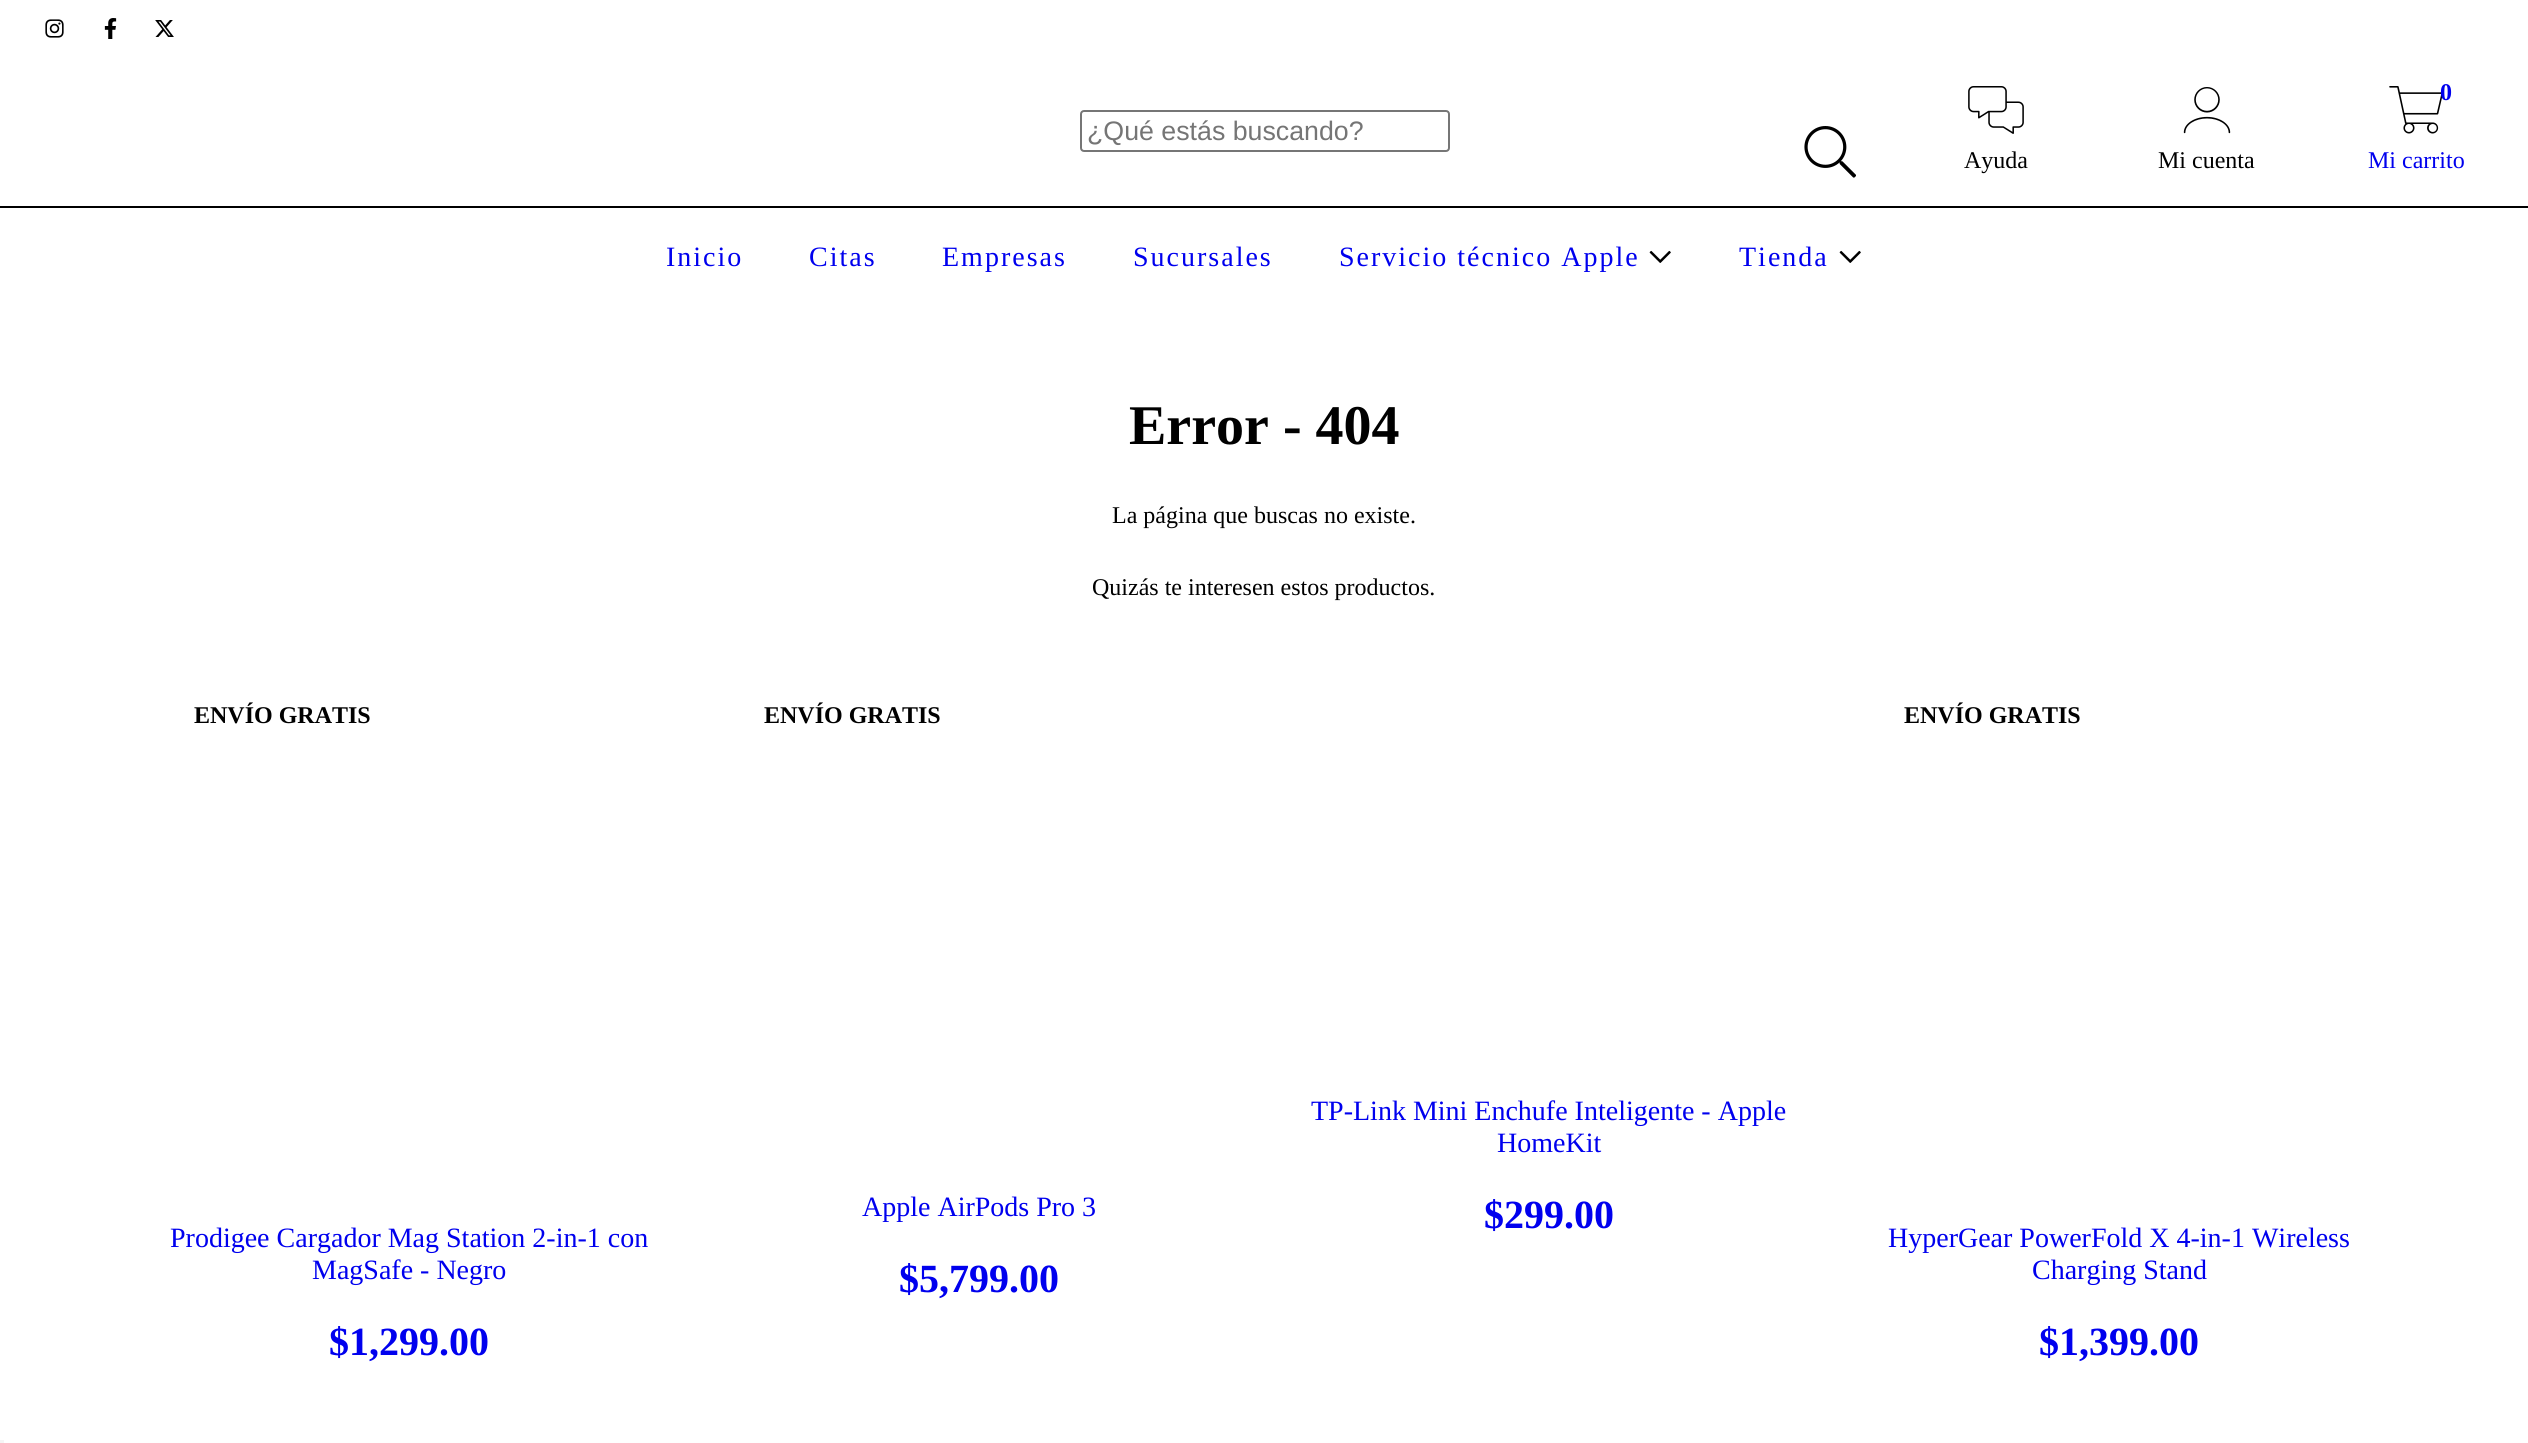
import math
import cairo

surface = cairo.ImageSurface(cairo.Format.RGB24, 2528, 1443)
ctx = cairo.Context(surface)
options = cairo.FontOptions()
options.set_hint_metrics(cairo.HintMetrics.OFF)
options.set_hint_style(cairo.HintStyle.NONE)
ctx.set_font_options(options)
ctx.set_miter_limit(4)


def ink(r, g, b):
    ctx.set_source_rgb(r / 255, g / 255, b / 255)


def write(x, y, s, family, size, color, bold=False, italic=False):
    ctx.select_font_face(family, cairo.FontSlant.ITALIC if italic else cairo.FontSlant.NORMAL, cairo.FontWeight.BOLD if bold else cairo.FontWeight.NORMAL)
    ctx.set_font_size(size)
    ink(*color)
    ctx.move_to(x, y)
    ctx.show_text(s)


def write_spaced(x, y, s, letter, word):
    ctx.move_to(x, y)
    for ch in s:
        ctx.show_text(ch)
        ctx.rel_move_to(letter + word * (ch == ' '), 0)


def block(x, y, w, h, *color):
    ink(*color)
    ctx.rectangle(x, y, w, h)
    ctx.fill()


def round_path(x, y, w, h, r):
    ctx.new_sub_path()
    for i, (u, v) in enumerate([(x + w - r, y + h - r), (x + r, y + h - r), (x + r, y + r), (x + w - r, y + r)]):
        ctx.arc(u, v, r, i * math.pi / 2, (i + 1) * math.pi / 2)
    ctx.close_path()


def paste(path, x, y, w, h):
    ctx.save()
    ctx.set_source_surface(cairo.ImageSurface.create_from_png(path), x, y)
    ctx.rectangle(x, y, w, h)
    ctx.fill()
    ctx.restore()


s1 = dict(family="Liberation Sans", size=26.75, color=(117, 117, 117))
s2 = dict(family="Liberation Serif", size=24, color=(0, 0, 0))
s3 = dict(family="Liberation Serif", size=24, color=(0, 0, 238), bold=True)
s4 = dict(family="Liberation Serif", size=24, color=(0, 0, 238))
s5 = dict(family="Liberation Serif", size=56, color=(0, 0, 0), bold=True)
s6 = dict(family="Liberation Serif", size=24, color=(0, 0, 0), bold=True)
s7 = dict(family="Liberation Serif", size=28, color=(0, 0, 238))
s8 = dict(family="Liberation Serif", size=40, color=(0, 0, 238), bold=True)

ink(255, 255, 255)
ctx.paint()
paste("pic1.png", 45, 19, 19, 19)
paste("pic2.png", 104, 18, 13, 21)
paste("pic3.png", 155, 20, 19, 17)
round_path(1081, 111, 368, 40, 3)
ink(118, 118, 118)
ctx.stroke()
write(1087, 140, "¿Qué estás buscando?", **s1)
paste("pic4.png", 1804, 126, 52, 52)
paste("pic5.png", 1968, 86, 56, 48)
write(1964, 168, "Ayuda", **s2)
paste("pic6.png", 2183, 87, 48, 47)
write(2158, 168, "Mi cuenta", **s2)
paste("pic7.png", 2389, 86, 54, 48)
write(2440, 100, "0", **s3)
write(2368, 168, "Mi carrito", **s4)
block(0, 206, 2528, 2, 0, 0, 0)
ctx.set_font_size(28)
ink(0, 0, 238)
write_spaced(666, 266, "Inicio", 2, 0)
write_spaced(809, 266, "Citas", 2, 0)
write_spaced(942, 266, "Empresas", 2, 0)
write_spaced(1133, 266, "Sucursales", 2, 0)
write_spaced(1339, 266, "Servicio técnico Apple", 2, 0)
paste("pic8.png", 1649, 250, 22, 13)
write_spaced(1739, 266, "Tienda", 2, 0)
paste("pic8.png", 1839, 250, 22, 13)
write(1129, 444, "Error - 404", **s5)
write(1112, 523, "La página que buscas no existe.", **s2)
write(1092, 595, "Quizás te interesen estos productos.", **s2)
write(194, 723, "ENVÍO GRATIS", **s6)
write(170, 1247, "Prodigee Cargador Mag Station 2-in-1 con", **s7)
write(312, 1279, "MagSafe - Negro", **s7)
write(329, 1355, "$1,299.00", **s8)
write(764, 723, "ENVÍO GRATIS", **s6)
write(862, 1216, "Apple AirPods Pro 3", **s7)
write(899, 1292, "$5,799.00", **s8)
write(1311, 1120, "TP-Link Mini Enchufe Inteligente - Apple", **s7)
write(1497, 1152, "HomeKit", **s7)
write(1484, 1228, "$299.00", **s8)
write(1904, 723, "ENVÍO GRATIS", **s6)
write(1888, 1247, "HyperGear PowerFold X 4-in-1 Wireless", **s7)
write(2032, 1279, "Charging Stand", **s7)
write(2039, 1355, "$1,399.00", **s8)
block(0, 1440, 4, 3, 245, 245, 245)
surface.write_to_png("screenshot.png")
